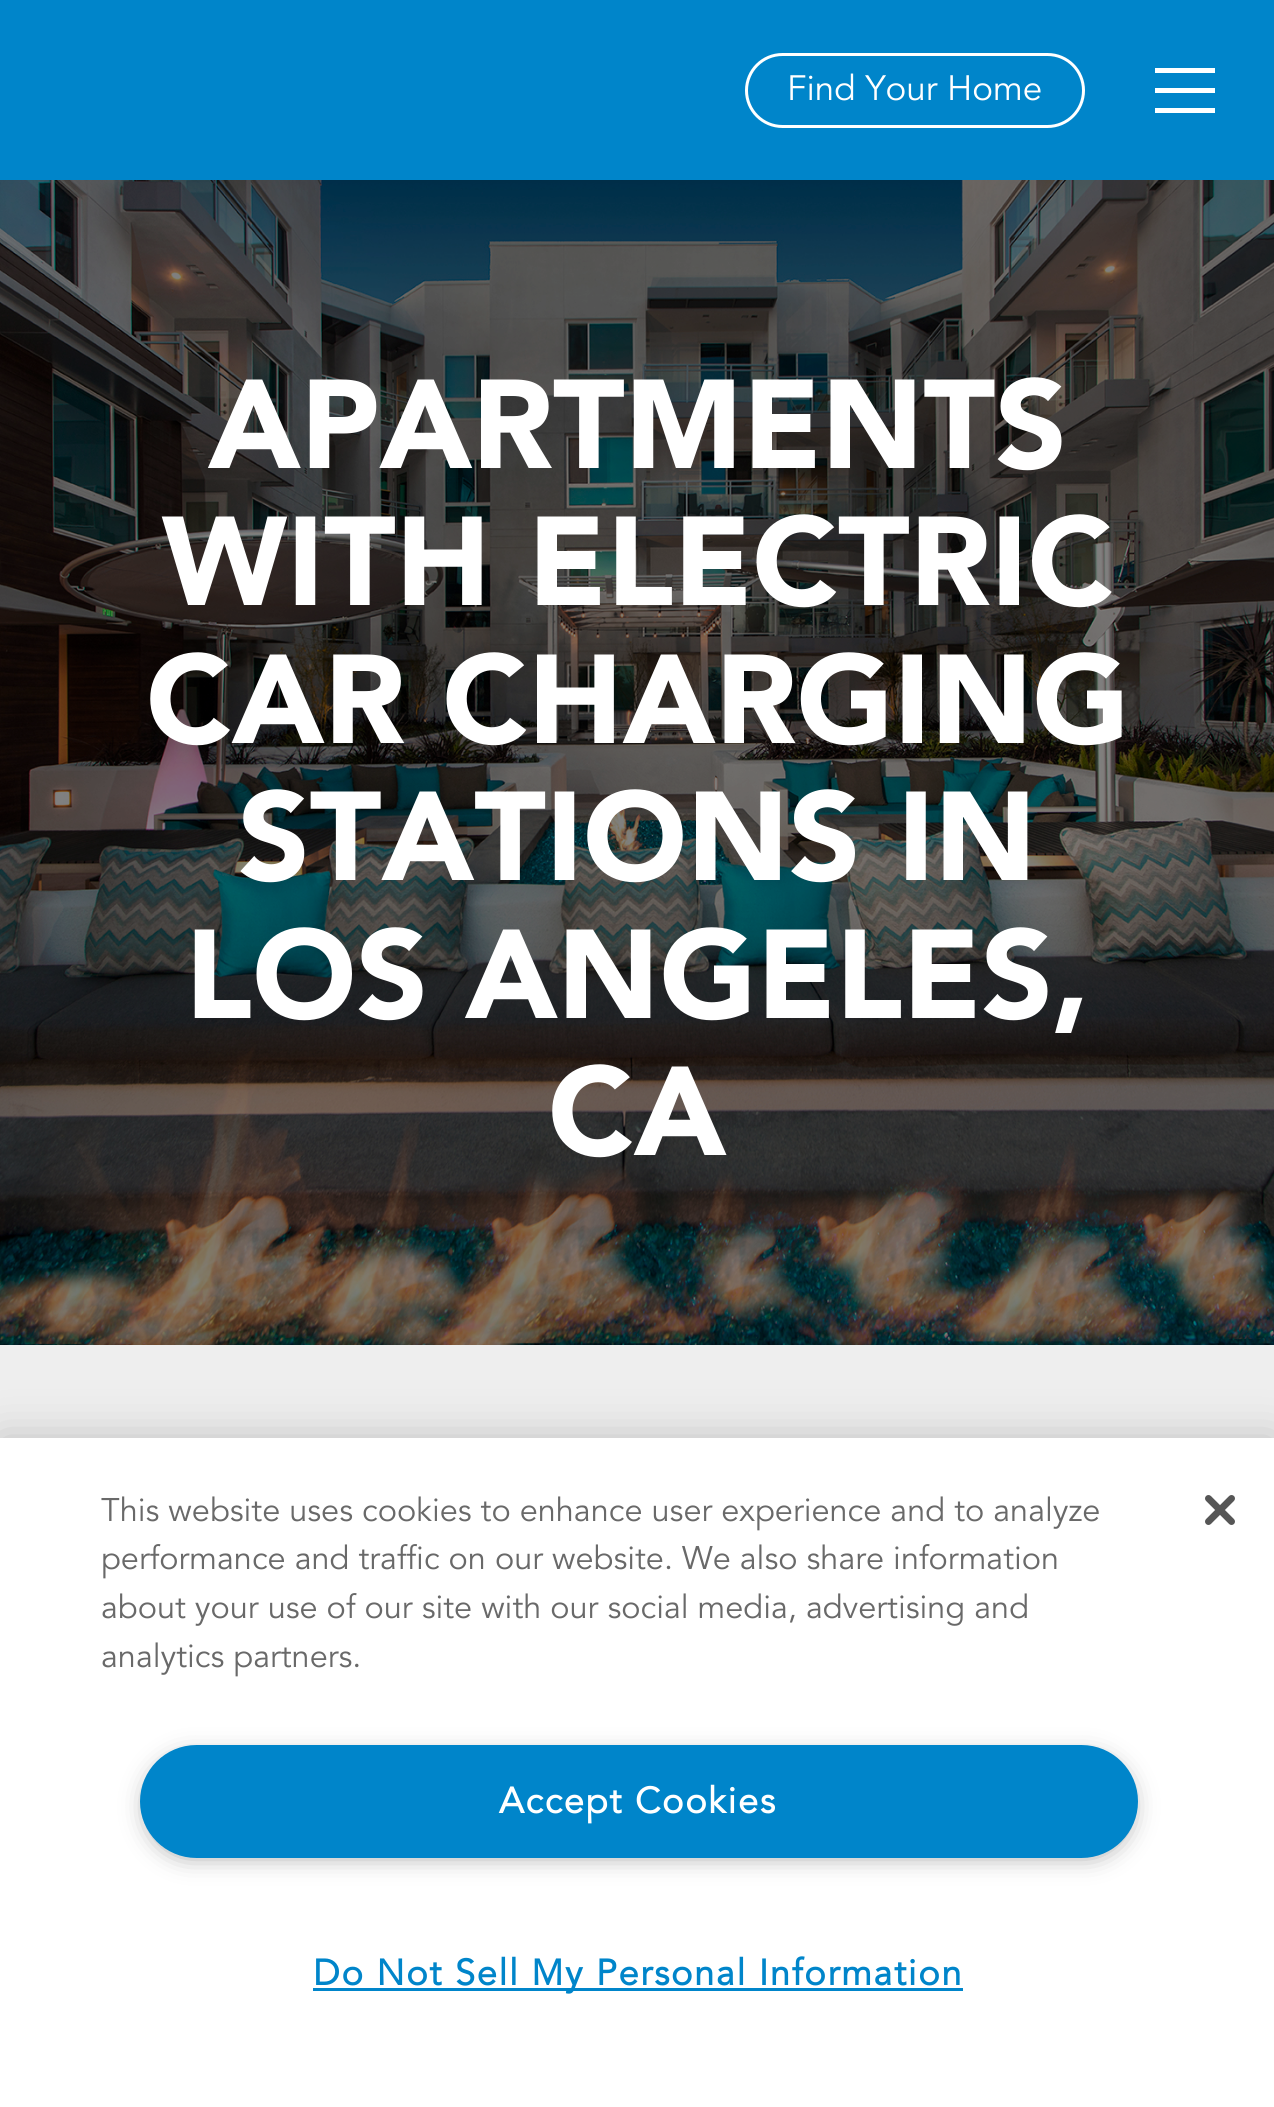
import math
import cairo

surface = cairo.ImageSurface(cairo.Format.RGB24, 1274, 2107)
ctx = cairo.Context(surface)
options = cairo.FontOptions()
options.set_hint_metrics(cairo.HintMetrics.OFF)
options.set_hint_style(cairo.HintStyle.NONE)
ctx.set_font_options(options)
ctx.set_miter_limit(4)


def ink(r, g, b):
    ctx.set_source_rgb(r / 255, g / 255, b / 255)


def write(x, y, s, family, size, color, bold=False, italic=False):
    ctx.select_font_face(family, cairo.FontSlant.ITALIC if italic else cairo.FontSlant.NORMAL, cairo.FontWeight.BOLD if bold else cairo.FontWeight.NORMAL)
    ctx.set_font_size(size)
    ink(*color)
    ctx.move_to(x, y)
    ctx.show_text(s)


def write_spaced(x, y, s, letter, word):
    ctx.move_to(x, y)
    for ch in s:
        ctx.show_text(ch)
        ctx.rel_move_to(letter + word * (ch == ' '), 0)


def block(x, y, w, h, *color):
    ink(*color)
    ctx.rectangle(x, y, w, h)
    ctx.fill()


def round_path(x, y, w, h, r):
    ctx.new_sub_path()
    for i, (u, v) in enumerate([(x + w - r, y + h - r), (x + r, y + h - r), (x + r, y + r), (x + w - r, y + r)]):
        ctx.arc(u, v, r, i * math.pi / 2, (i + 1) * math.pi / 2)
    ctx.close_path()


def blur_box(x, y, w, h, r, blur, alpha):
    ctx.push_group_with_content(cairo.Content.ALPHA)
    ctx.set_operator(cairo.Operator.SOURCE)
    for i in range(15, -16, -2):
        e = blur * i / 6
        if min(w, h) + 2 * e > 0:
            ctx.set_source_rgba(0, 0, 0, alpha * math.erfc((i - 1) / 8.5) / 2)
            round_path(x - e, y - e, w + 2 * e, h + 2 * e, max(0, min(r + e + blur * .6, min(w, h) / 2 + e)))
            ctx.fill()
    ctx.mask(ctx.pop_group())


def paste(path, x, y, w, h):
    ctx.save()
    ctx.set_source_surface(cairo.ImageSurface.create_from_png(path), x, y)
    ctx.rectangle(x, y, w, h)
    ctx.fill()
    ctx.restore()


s1 = dict(family="Avenir", size=35, color=(255, 255, 255))
s2 = dict(family="Avenir Black", size=125, color=(255, 255, 255))
s3 = dict(family="Avenir", size=32.5, color=(105, 105, 105))

ink(255, 255, 255)
ctx.paint()
block(0, 0, 1274, 180, 0, 133, 202)
round_path(746.5, 54.5, 337, 72, 36)
ink(255, 255, 255)
ctx.set_line_width(3)
ctx.stroke()
write(787, 100, "Find Your Home", **s1)
block(1155, 68, 60, 5, 255, 255, 255)
block(1155, 88, 60, 5, 255, 255, 255)
block(1155, 108, 60, 5, 255, 255, 255)
paste("pic1.png", 0, 180, 1274, 1165)
write(208, 468, "APARTMENTS", **s2)
write(162, 605, "WITH ELECTRIC", **s2)
write(146, 743, "CAR CHARGING", **s2)
write(238, 880, "STATIONS IN", **s2)
write(185, 1018, "LOS ANGELES,", **s2)
write(548, 1155, "CA", **s2)
block(0, 1345, 1274, 93, 238, 238, 238)
ink(0, 0, 0)
blur_box(0, 1438, 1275, 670, 0, 22.5, 0.2)
block(0, 1438, 1274, 669, 255, 255, 255)
write(101, 1521, "This website uses cookies to enhance user experience and to analyze", **s3)
write(101, 1569, "performance and traffic on our website. We also share information", **s3)
write(101, 1618, "about your use of our site with our social media, advertising and", **s3)
write(101, 1667, "analytics partners.", **s3)
ink(153, 153, 153)
blur_box(148, 1758, 982, 97, 48.5, 12.5, 1)
ink(0, 133, 202)
round_path(141.5, 1746.5, 995, 110, 55)
ctx.fill_preserve()
ctx.stroke()
ctx.select_font_face("Avenir", cairo.FontSlant.NORMAL, cairo.FontWeight.BOLD)
ctx.set_font_size(36)
ink(255, 255, 255)
write_spaced(499, 1813, "Accept Cookies", 1.8, 0)
block(313, 1988, 650, 3, 0, 133, 202)
write_spaced(313, 1985, "Do Not Sell My Personal Information", 1.8, 0)
paste("pic2.png", 1205, 1495, 30, 30)
surface.write_to_png("screenshot.png")
